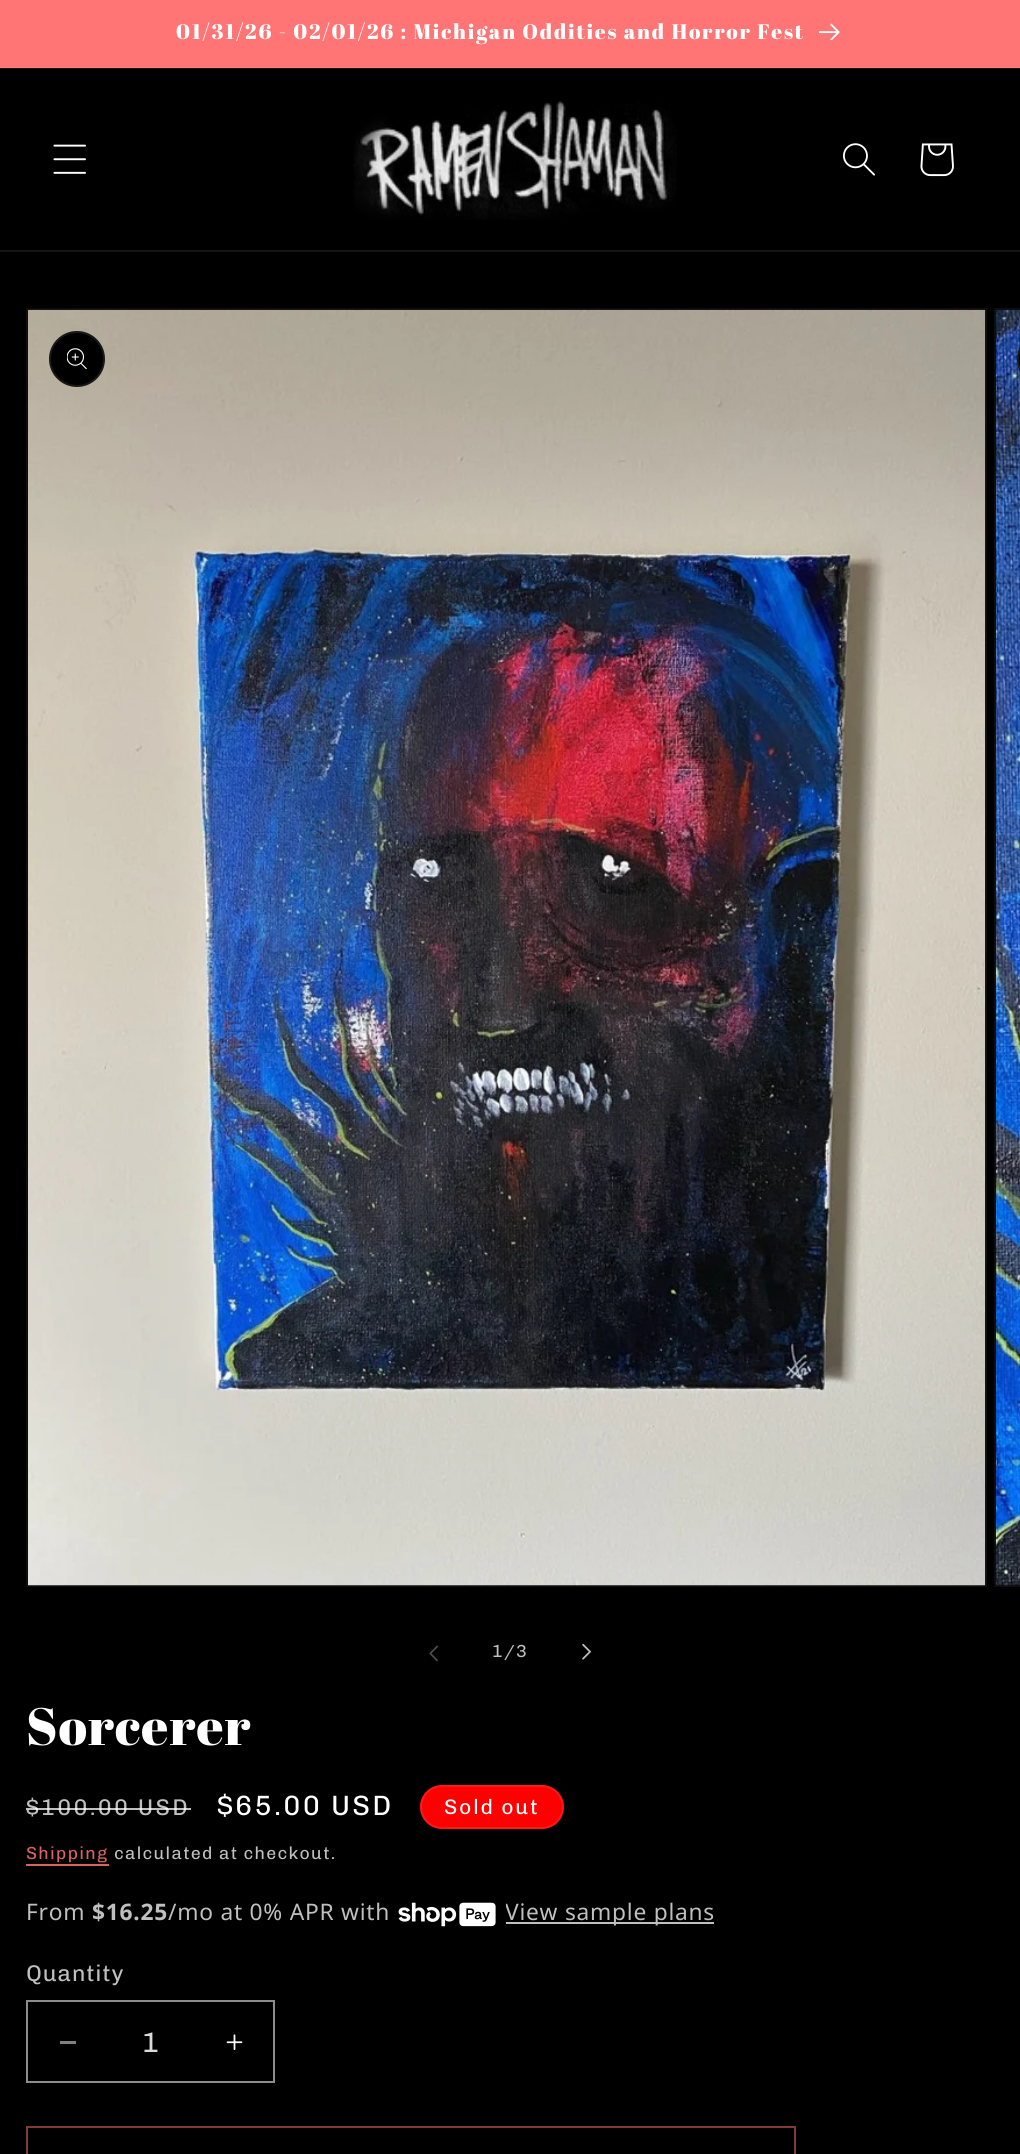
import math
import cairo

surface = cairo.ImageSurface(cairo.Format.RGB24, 1020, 2154)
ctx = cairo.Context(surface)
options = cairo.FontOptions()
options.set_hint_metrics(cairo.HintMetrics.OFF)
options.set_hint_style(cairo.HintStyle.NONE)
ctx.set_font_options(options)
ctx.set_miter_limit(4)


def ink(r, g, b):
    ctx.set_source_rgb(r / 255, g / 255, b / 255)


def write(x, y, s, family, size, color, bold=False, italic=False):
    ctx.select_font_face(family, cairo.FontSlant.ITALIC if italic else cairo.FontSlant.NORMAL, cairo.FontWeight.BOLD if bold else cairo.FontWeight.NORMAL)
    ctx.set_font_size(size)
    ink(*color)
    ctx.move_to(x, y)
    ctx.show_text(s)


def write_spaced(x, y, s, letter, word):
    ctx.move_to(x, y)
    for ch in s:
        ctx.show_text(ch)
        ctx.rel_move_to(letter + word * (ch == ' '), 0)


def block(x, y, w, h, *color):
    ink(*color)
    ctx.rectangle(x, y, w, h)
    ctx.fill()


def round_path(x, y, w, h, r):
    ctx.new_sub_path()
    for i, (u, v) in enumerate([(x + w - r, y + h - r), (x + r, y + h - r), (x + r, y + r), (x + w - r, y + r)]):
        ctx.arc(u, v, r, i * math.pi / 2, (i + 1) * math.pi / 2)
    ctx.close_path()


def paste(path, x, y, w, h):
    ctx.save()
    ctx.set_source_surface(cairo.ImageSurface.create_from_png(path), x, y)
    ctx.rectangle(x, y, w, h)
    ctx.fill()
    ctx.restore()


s1 = dict(family="Chivo", size=28, color=(217, 217, 217))

ink(0, 0, 0)
ctx.paint()
block(0, 68, 1020, 1, 20, 20, 20)
block(0, 0, 1020, 67, 255, 116, 116)
block(0, 67, 1020, 1, 255, 127, 127)
ctx.select_font_face("Abril Fatface")
ctx.set_font_size(21)
ink(255, 255, 255)
write_spaced(176, 39, "01/31/26 - 02/01/26 : Michigan Oddities and Horror Fest", 1.75, 0)
paste("pic1.png", 819, 23, 21, 17)
block(0, 250, 1020, 2, 20, 20, 20)
paste("pic2.png", 53, 144, 33, 30)
paste("pic3.png", 353, 101, 324, 119)
paste("pic4.png", 843, 143, 32, 33)
paste("pic5.png", 920, 143, 34, 34)
ctx.rectangle(27, 309, 959, 1277)
ink(13, 13, 13)
ctx.stroke()
paste("pic6.png", 28, 309, 958, 1277)
ink(0, 0, 0)
ctx.arc(77, 359, 28, 0, 2 * math.pi)
ctx.fill()
ctx.arc(77, 359, 27, 0, 2 * math.pi)
ctx.set_source_rgba(1, 1, 1, 0.1)
ctx.stroke()
paste("pic7.png", 67, 348, 20, 22)
ctx.rectangle(995, 309, 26, 1277)
ink(13, 13, 13)
ctx.stroke()
paste("pic8.png", 995, 309, 25, 1277)
ink(0, 0, 0)
ctx.new_path()
ctx.move_to(1045, 331)
ctx.line_to(1020, 331)
ctx.line_to(1020, 387)
ctx.line_to(1045, 387)
ctx.curve_to(1029.5, 387, 1017, 374.5, 1017, 359)
ctx.curve_to(1017, 343.5, 1029.5, 331, 1045, 331)
ctx.close_path()
ctx.fill()
round_path(1018, 332, 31, 54, 27)
ctx.set_source_rgba(1, 1, 1, 0.1)
ctx.stroke()
paste("pic9.png", 429, 1645, 9, 17)
ctx.select_font_face("Chivo")
ctx.set_font_size(17.5)
ink(191, 191, 191)
write_spaced(492, 1657, "1/3", 1.25, 0)
paste("pic10.png", 582, 1643, 9, 17)
ctx.select_font_face("Abril Fatface")
ctx.set_font_size(52.5)
ink(255, 255, 255)
write_spaced(26, 1745, "Sorcerer", 1, 0)
ctx.select_font_face("Chivo")
ctx.set_font_size(22.75)
ink(191, 191, 191)
write_spaced(26, 1815, "$100.00 USD", 2.25, 0)
ctx.set_source_rgba(1, 1, 1, 0.75)
ctx.rectangle(26, 1808, 165, 2)
ctx.fill()
ctx.set_font_size(28)
ink(255, 255, 255)
write_spaced(217, 1815, "$65.00 USD", 2.25, 0)
ink(255, 0, 0)
round_path(420, 1785, 144, 44, 22)
ctx.fill()
round_path(421, 1786, 142, 42, 21)
ctx.set_source_rgba(1, 1, 1, 0.1)
ctx.stroke()
ctx.set_font_size(21)
ink(255, 255, 255)
write_spaced(444, 1814, "Sold out", 1.75, 0)
ctx.set_font_size(17.5)
ink(217, 99, 99)
write_spaced(26, 1859, "Shipping", 1.25, 0)
block(26, 1864, 83, 2, 217, 99, 99)
ink(191, 191, 191)
write_spaced(114, 1859, "calculated at checkout.", 1.25, 0)
ctx.select_font_face("Noto Sans")
ctx.set_font_size(22.75)
write_spaced(26, 1920, "From", 0.75, 0)
ctx.select_font_face("Noto Sans", cairo.FontSlant.NORMAL, cairo.FontWeight.BOLD)
write_spaced(92, 1920, "$16.25", 0.75, 0)
ctx.select_font_face("Noto Sans")
write_spaced(168, 1920, "/mo at 0% APR with", 0.75, 0)
paste("pic11.png", 398, 1902, 98, 25)
block(506, 1922, 208, 2, 191, 191, 191)
ctx.save()
ctx.rectangle(506, 1895, 208, 35)
ctx.clip()
write_spaced(505, 1920, "View sample plans", 0.75, 0)
ctx.restore()
ctx.select_font_face("Chivo")
write_spaced(26, 1981, "Quantity", 0.75, 0)
block(60, 2041, 16, 3, 128, 128, 128)
paste("pic12.png", 226, 2034, 17, 17)
ctx.rectangle(27, 2001, 247, 81)
ink(140, 140, 140)
ctx.stroke()
write(142, 2052, "1", **s1)
ctx.rectangle(27, 2127, 768, 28)
ink(128, 58, 58)
ctx.stroke()
surface.write_to_png("screenshot.png")
